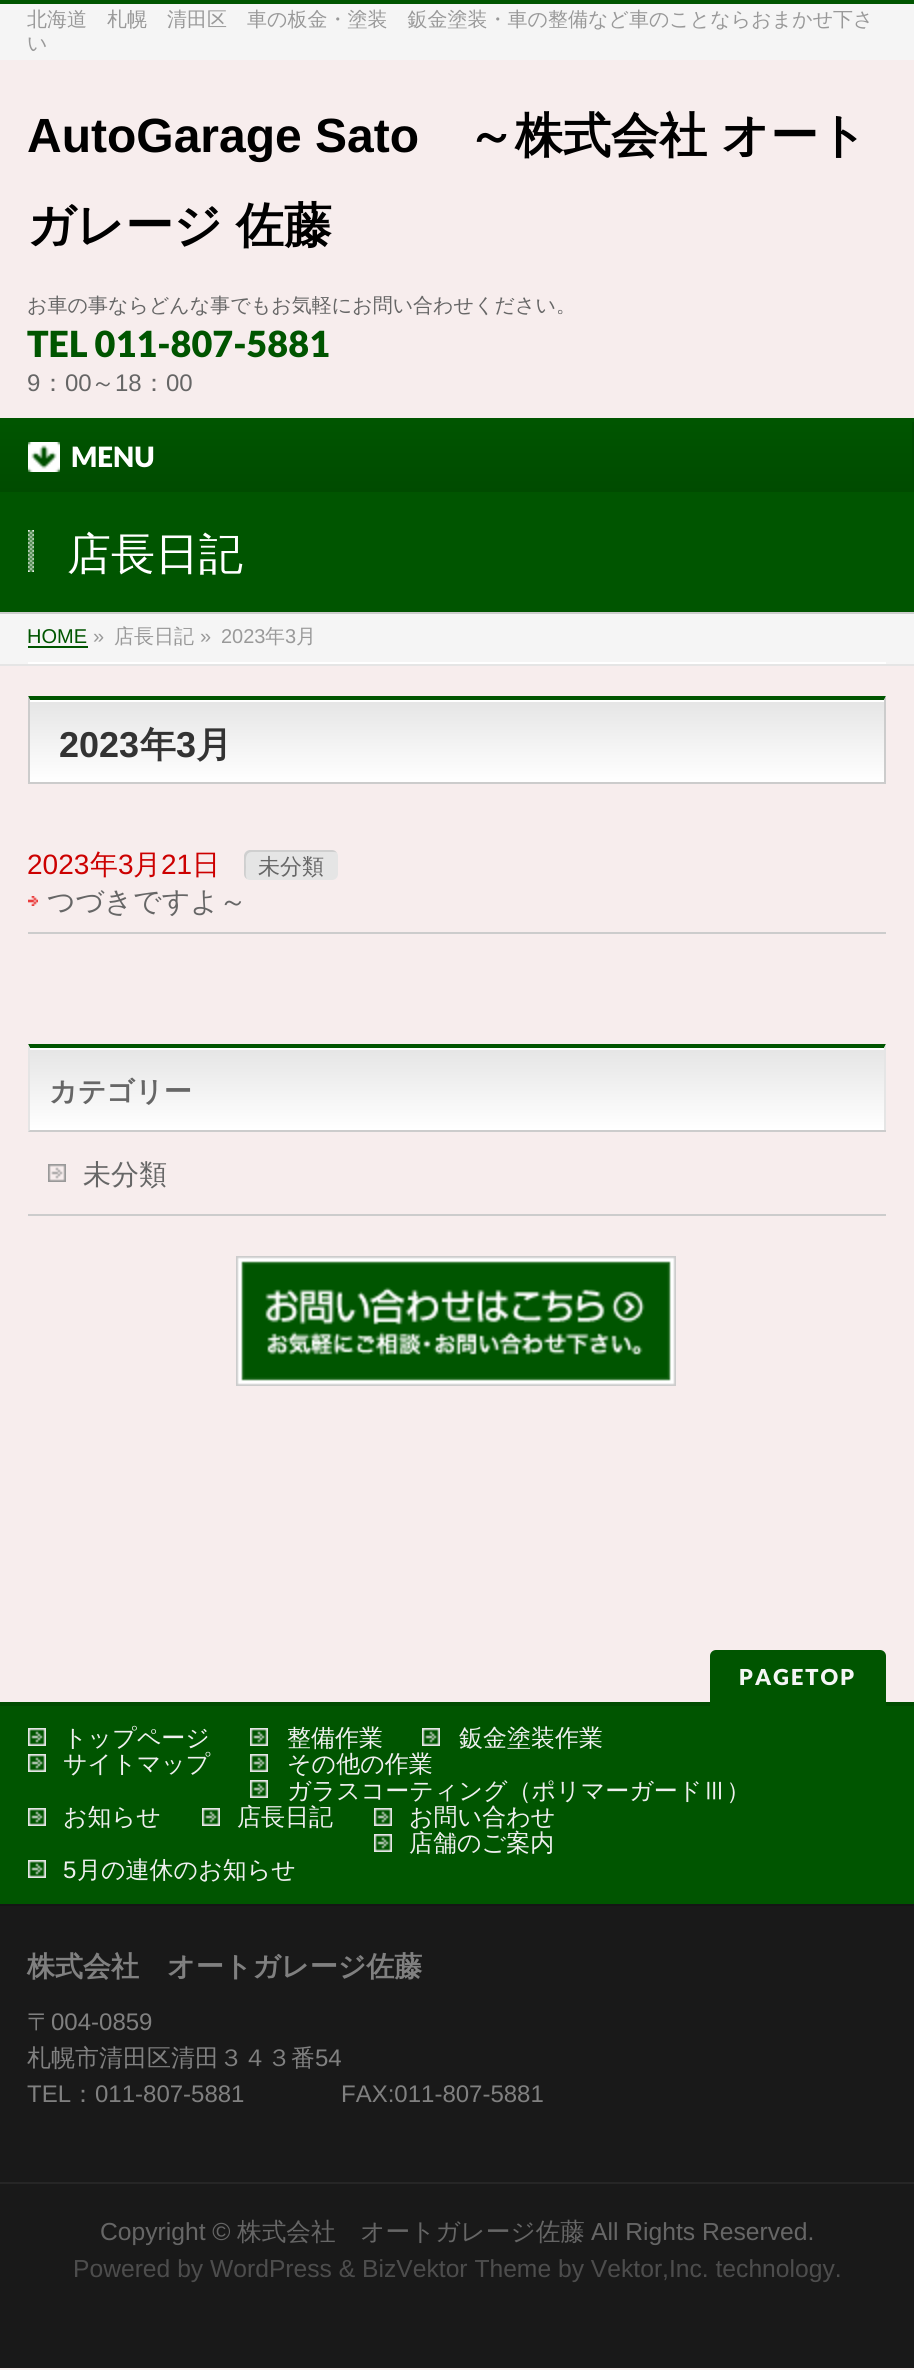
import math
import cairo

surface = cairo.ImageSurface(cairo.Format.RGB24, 914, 2370)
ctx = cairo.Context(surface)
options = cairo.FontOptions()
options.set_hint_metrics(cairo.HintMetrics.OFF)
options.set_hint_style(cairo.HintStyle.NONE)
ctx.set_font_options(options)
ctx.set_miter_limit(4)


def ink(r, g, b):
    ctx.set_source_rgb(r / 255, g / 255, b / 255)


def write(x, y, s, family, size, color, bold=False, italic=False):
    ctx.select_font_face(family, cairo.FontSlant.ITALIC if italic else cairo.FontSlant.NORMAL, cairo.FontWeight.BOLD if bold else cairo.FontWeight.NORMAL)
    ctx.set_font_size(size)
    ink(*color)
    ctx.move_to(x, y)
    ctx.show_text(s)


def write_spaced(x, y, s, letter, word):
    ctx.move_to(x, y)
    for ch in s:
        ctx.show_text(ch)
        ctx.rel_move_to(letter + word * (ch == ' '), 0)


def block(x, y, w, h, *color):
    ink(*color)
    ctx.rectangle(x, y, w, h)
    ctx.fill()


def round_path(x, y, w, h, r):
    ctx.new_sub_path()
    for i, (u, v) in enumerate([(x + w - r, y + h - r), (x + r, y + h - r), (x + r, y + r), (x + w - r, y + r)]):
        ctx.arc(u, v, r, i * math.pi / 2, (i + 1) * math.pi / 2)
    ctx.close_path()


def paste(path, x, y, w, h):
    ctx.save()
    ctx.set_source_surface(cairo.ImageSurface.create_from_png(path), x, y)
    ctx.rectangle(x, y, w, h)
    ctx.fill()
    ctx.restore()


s1 = dict(family="WenQuanYi Zen Hei Medium", size=20, color=(153, 153, 153))
s2 = dict(family="Liberation Sans", size=48, color=(0, 0, 0), bold=True)
s3 = dict(family="WenQuanYi Zen Hei", size=48, color=(0, 0, 0), bold=True)
s4 = dict(family="WenQuanYi Zen Hei Medium", size=20, color=(102, 102, 102))
s5 = dict(family="Lato Black", size=36, color=(0, 85, 0))
s6 = dict(family="Liberation Sans", size=24, color=(102, 102, 102))
s7 = dict(family="WenQuanYi Zen Hei Medium", size=24, color=(102, 102, 102))
s8 = dict(family="Lato Black", size=28, color=(255, 255, 255))
s9 = dict(family="WenQuanYi Zen Hei Medium", size=44, color=(255, 255, 255))
s10 = dict(family="Liberation Sans", size=20, color=(0, 85, 0))
s11 = dict(family="Liberation Sans", size=20, color=(153, 153, 153))
s12 = dict(family="Liberation Sans", size=36, color=(51, 51, 51), bold=True)
s13 = dict(family="WenQuanYi Zen Hei", size=36, color=(51, 51, 51), bold=True)
s14 = dict(family="Liberation Sans", size=28, color=(204, 0, 0))
s15 = dict(family="WenQuanYi Zen Hei Medium", size=28, color=(204, 0, 0))
s16 = dict(family="WenQuanYi Zen Hei Medium", size=22, color=(102, 102, 102))
s17 = dict(family="WenQuanYi Zen Hei Medium", size=28, color=(102, 102, 102))
s18 = dict(family="WenQuanYi Zen Hei", size=28, color=(102, 102, 102), bold=True)
s19 = dict(family="WenQuanYi Zen Hei Medium", size=24, color=(239, 239, 239))
s20 = dict(family="Liberation Sans", size=24, color=(239, 239, 239))
s21 = dict(family="WenQuanYi Zen Hei", size=28, color=(128, 128, 128), bold=True)
s22 = dict(family="WenQuanYi Zen Hei Medium", size=24, color=(128, 128, 128))
s23 = dict(family="Liberation Sans", size=24, color=(128, 128, 128))
s24 = dict(family="Liberation Sans", size=24.65, color=(102, 102, 102))
s25 = dict(family="WenQuanYi Zen Hei Medium", size=24.65, color=(102, 102, 102))
s26 = dict(family="Liberation Sans", size=24.65, color=(77, 77, 77))

ink(247, 237, 237)
ctx.paint()
block(0, 4, 914, 56, 245, 245, 245)
block(0, 0, 914, 4, 0, 85, 0)
write(27, 26, "北海道　札幌　清田区　車の板金・塗装　鈑金塗装・車の整備など車のことならおまかせ下さ", **s1)
write(27, 50, "い", **s1)
write(27, 152, "AutoGarage Sato", **s2)
write(467, 152, "～株式会社", **s3)
write(721, 152, "オート", **s3)
write_spaced(27, 242, "ガレージ 佐藤", 0, -1)
write(27, 312, "お車の事ならどんな事でもお気軽にお問い合わせください。", **s4)
write(27, 357, "TEL 011-807-5881", **s5)
write(27, 391, "9", **s6)
write(41, 391, "：", **s7)
write(65, 391, "00", **s6)
write(91, 391, "～", **s7)
write(115, 391, "18", **s6)
write(142, 391, "：", **s7)
write(166, 391, "00", **s6)
block(0, 418, 914, 4, 0, 85, 0)
gradient = cairo.LinearGradient(456, 422, 456, 492)
gradient.add_color_stop_rgba(0, 0, 0.333, 0, 1)
gradient.add_color_stop_rgba(1, 0, 0.294, 0, 1)
ctx.set_source(gradient)
ctx.rectangle(0, 422, 912, 70)
ctx.fill()
block(912, 422, 2, 70, 0, 75, 0)
paste("pic1.png", 28, 442, 32, 30)
write(71, 467, "MENU", **s8)
block(0, 492, 914, 120, 0, 85, 0)
block(0, 612, 914, 2, 204, 204, 204)
paste("pic2.png", 28, 530, 6, 42)
write(67, 569, "店長日記", **s9)
block(0, 614, 914, 50, 245, 245, 245)
block(0, 664, 914, 2, 229, 229, 229)
block(28, 662, 858, 2, 255, 255, 255)
write(27, 643, "HOME", **s10)
block(28, 646, 60, 2, 0, 85, 0)
write(93, 643, "»", **s11)
write(114, 643, "店長日記", **s1)
write(200, 643, "»", **s11)
write(221, 643, "2023", **s11)
write(265, 643, "年", **s1)
write(285, 643, "3", **s11)
write(296, 643, "月", **s1)
gradient = cairo.LinearGradient(30, 700, 30, 782)
gradient.add_color_stop_rgba(0, 0.898, 0.898, 0.898, 1)
gradient.add_color_stop_rgba(1, 1, 1, 1, 1)
ctx.set_source(gradient)
ctx.rectangle(30, 702, 854, 80)
ctx.fill()
block(30, 700, 854, 2, 255, 255, 255)
ink(0, 85, 0)
ctx.new_path()
ctx.move_to(28, 696)
ctx.line_to(886, 696)
ctx.line_to(884, 700)
ctx.line_to(30, 700)
ctx.close_path()
ctx.fill()
ink(204, 204, 204)
ctx.new_path()
ctx.move_to(886, 696)
ctx.line_to(886, 784)
ctx.line_to(884, 782)
ctx.line_to(884, 700)
ctx.close_path()
ctx.fill()
block(28, 782, 858, 2, 204, 204, 204)
ctx.new_path()
ctx.move_to(28, 784)
ctx.line_to(28, 696)
ctx.line_to(30, 700)
ctx.line_to(30, 782)
ctx.close_path()
ctx.fill()
write(59, 757, "2023", **s12)
write(140, 757, "年", **s13)
write(176, 757, "3", **s12)
write(196, 757, "月", **s13)
block(28, 932, 858, 2, 204, 204, 204)
write(27, 874, "2023", **s14)
write(90, 874, "年", **s15)
write(118, 874, "3", **s14)
write(133, 874, "月", **s15)
write(161, 874, "21", **s14)
write(192, 874, "日", **s15)
ink(229, 229, 229)
round_path(244, 850, 94, 30, 6)
ctx.fill()
ctx.set_source_rgba(0, 0, 0, 0.1)
ctx.new_path()
ctx.move_to(252, 852)
ctx.line_to(334, 852)
ctx.curve_to(335, 852, 336, 852, 337, 853)
ctx.curve_to(336, 851, 334, 850, 332, 850)
ctx.line_to(250, 850)
ctx.curve_to(247, 850, 244, 853, 244, 856)
ctx.line_to(244, 874)
ctx.curve_to(244, 876, 245, 878, 247, 879)
ctx.curve_to(245, 876, 246, 871, 246, 867)
ctx.curve_to(246, 862, 244, 852, 252, 852)
ctx.close_path()
ctx.fill()
write(258, 874, "未分類", **s16)
paste("pic3.png", 28, 896, 10, 10)
write(47, 911, "つづきですよ～", **s17)
gradient = cairo.LinearGradient(30, 1048, 30, 1130)
gradient.add_color_stop_rgba(0, 0.898, 0.898, 0.898, 1)
gradient.add_color_stop_rgba(1, 1, 1, 1, 1)
ctx.set_source(gradient)
ctx.rectangle(30, 1050, 854, 80)
ctx.fill()
block(30, 1048, 854, 2, 255, 255, 255)
ink(0, 85, 0)
ctx.new_path()
ctx.move_to(28, 1044)
ctx.line_to(886, 1044)
ctx.line_to(884, 1048)
ctx.line_to(30, 1048)
ctx.close_path()
ctx.fill()
ink(229, 229, 229)
ctx.new_path()
ctx.move_to(886, 1044)
ctx.line_to(886, 1132)
ctx.line_to(884, 1130)
ctx.line_to(884, 1048)
ctx.close_path()
ctx.fill()
block(28, 1130, 858, 2, 204, 204, 204)
ink(229, 229, 229)
ctx.new_path()
ctx.move_to(28, 1132)
ctx.line_to(28, 1044)
ctx.line_to(30, 1048)
ctx.line_to(30, 1130)
ctx.close_path()
ctx.fill()
write(49, 1101, "カテゴリー", **s18)
block(28, 1214, 858, 2, 204, 204, 204)
paste("pic4.png", 48, 1164, 18, 18)
write(83, 1184, "未分類", **s17)
block(241, 1261, 430, 120, 0, 85, 0)
paste("pic5.png", 236, 1256, 440, 130)
block(0, 1706, 914, 198, 0, 85, 0)
block(0, 1702, 914, 4, 0, 75, 0)
ink(0, 85, 0)
round_path(710, 1650, 176, 72, 6)
ctx.fill()
ctx.select_font_face("Lato Black")
ctx.set_font_size(22)
ink(245, 245, 245)
write_spaced(739, 1685, "PAGETOP", 2, 0)
paste("pic6.png", 28, 1728, 18, 18)
write(63, 1746, "トップページ", **s19)
paste("pic6.png", 28, 1754, 18, 18)
write(63, 1772, "サイトマップ", **s19)
paste("pic6.png", 250, 1728, 18, 18)
write(287, 1746, "整備作業", **s19)
paste("pic6.png", 422, 1728, 18, 18)
write(459, 1746, "鈑金塗装作業", **s19)
paste("pic6.png", 250, 1754, 18, 18)
write(287, 1772, "その他の作業", **s19)
paste("pic6.png", 250, 1780, 18, 18)
write(287, 1799, "ガラスコーティング（ポリマーガードⅢ）", **s19)
paste("pic6.png", 28, 1808, 18, 18)
write(63, 1825, "お知らせ", **s19)
paste("pic6.png", 202, 1808, 18, 18)
write(237, 1825, "店長日記", **s19)
paste("pic6.png", 374, 1808, 18, 18)
write(409, 1825, "お問い合わせ", **s19)
paste("pic6.png", 374, 1834, 18, 18)
write(409, 1851, "店舗のご案内", **s19)
paste("pic6.png", 28, 1860, 18, 18)
write(63, 1878, "5", **s20)
write(77, 1878, "月の連休のお知らせ", **s19)
block(0, 1906, 914, 276, 25, 25, 25)
block(0, 1904, 914, 2, 21, 21, 21)
write(27, 1976, "株式会社　オートガレージ佐藤", **s21)
write(27, 2030, "〒", **s22)
write(51, 2030, "004-0859", **s23)
write(27, 2066, "札幌市清田区清田３４３番", **s22)
write(315, 2066, "54", **s23)
write(27, 2102, "TEL", **s23)
write(71, 2102, "：", **s22)
write(95, 2102, "011-807-5881", **s23)
write(341, 2102, "FAX:011-807-5881", **s23)
block(0, 2184, 914, 184, 25, 25, 25)
block(0, 2182, 914, 2, 38, 38, 38)
write(100, 2240, "Copyright ©", **s24)
write(237, 2240, "株式会社　オートガレージ佐藤", **s25)
write(591, 2240, "All Rights Reserved.", **s24)
write(73, 2277, "Powered by WordPress & BizVektor Theme by Vektor,Inc. technology.", **s26)
surface.write_to_png("screenshot.png")
